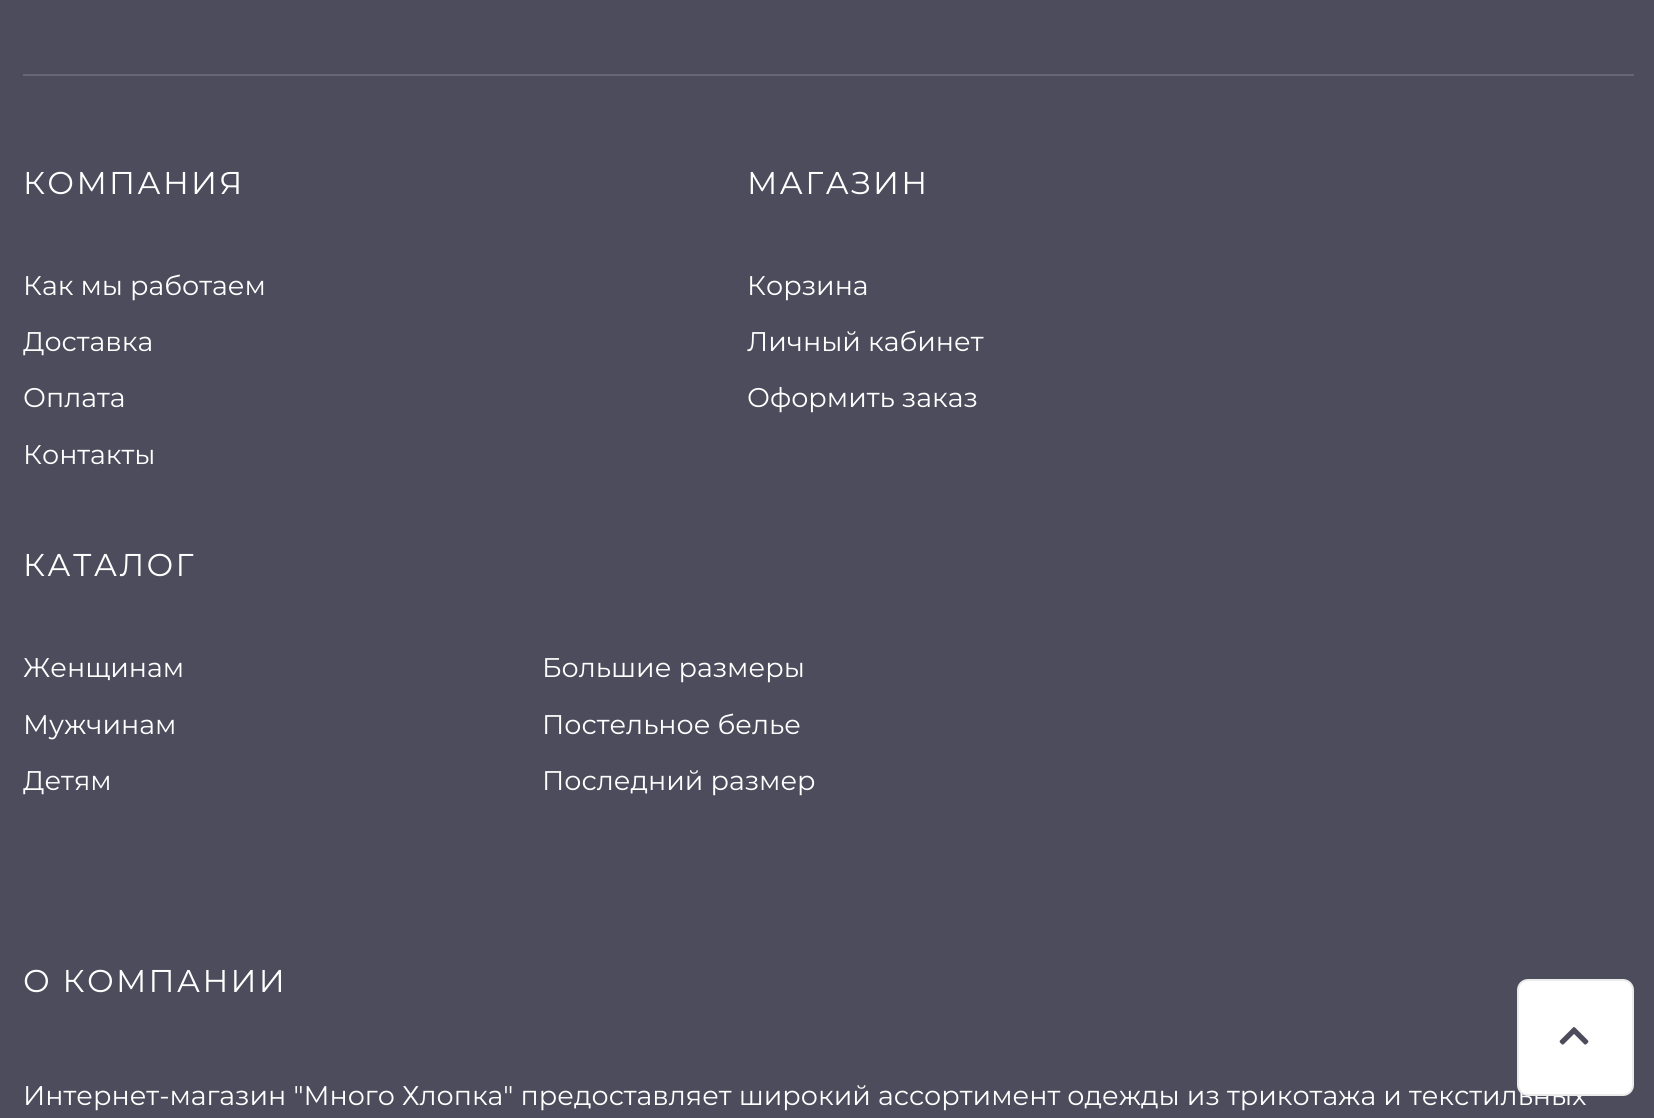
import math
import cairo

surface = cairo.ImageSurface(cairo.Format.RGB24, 1654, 1118)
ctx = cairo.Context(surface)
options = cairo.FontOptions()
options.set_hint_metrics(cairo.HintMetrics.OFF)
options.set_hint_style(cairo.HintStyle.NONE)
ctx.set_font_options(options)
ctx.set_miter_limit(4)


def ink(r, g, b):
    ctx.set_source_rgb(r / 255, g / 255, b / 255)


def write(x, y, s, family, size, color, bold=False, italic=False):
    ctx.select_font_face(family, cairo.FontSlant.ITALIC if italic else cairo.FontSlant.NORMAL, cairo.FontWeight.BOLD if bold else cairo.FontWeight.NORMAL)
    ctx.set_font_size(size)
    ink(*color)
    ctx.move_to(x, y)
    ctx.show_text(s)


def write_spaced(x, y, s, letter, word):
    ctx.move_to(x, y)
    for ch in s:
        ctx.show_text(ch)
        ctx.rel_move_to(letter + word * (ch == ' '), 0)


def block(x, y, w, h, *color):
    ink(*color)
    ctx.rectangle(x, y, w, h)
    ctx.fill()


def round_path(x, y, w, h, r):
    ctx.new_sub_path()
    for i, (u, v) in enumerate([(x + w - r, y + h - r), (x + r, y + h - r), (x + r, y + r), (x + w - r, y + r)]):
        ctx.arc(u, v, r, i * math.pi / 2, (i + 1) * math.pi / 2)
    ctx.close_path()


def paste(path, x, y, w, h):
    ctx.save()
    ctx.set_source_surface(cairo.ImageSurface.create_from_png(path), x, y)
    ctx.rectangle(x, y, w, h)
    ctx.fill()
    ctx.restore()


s1 = dict(family="Montserrat", size=27, color=(255, 255, 255))

ink(76, 76, 92)
ctx.paint()
block(23, 74, 1611, 2, 103, 103, 116)
ctx.select_font_face("Montserrat")
ctx.set_font_size(31.5)
ink(255, 255, 255)
write_spaced(23, 194, "КОМПАНИЯ", 2.25, 0)
write(23, 295, "Как мы работаем", **s1)
ctx.save()
ctx.rectangle(23, 155, 1611, 709)
ctx.clip()
write(23, 351, "Доставка", **s1)
ctx.restore()
write(23, 407, "Оплата", **s1)
write(23, 464, "Контакты", **s1)
ctx.set_font_size(31.5)
write_spaced(747, 194, "МАГАЗИН", 2.25, 0)
write(747, 295, "Корзина", **s1)
write(747, 351, "Личный кабинет", **s1)
write(747, 407, "Оформить заказ", **s1)
ctx.set_font_size(31.5)
write_spaced(23, 576, "КАТАЛОГ", 2.25, 0)
write(23, 677, "Женщинам", **s1)
write(542, 677, "Большие размеры", **s1)
write(23, 734, "Мужчинам", **s1)
write(542, 734, "Постельное белье", **s1)
ctx.save()
ctx.rectangle(23, 155, 1611, 709)
ctx.clip()
write(23, 790, "Детям", **s1)
ctx.restore()
write(542, 790, "Последний размер", **s1)
ctx.set_font_size(31.5)
write_spaced(23, 992, "О КОМПАНИИ", 2.25, 0)
write(23, 1105, "Интернет-магазин \"Много Хлопка\" предоставляет широкий ассортимент одежды из трикотажа и текстильных", **s1)
round_path(1518, 980, 115, 115, 10)
ctx.fill_preserve()
ink(235, 235, 235)
ctx.stroke()
paste("pic1.png", 1559, 1027, 30, 18)
surface.write_to_png("screenshot.png")
